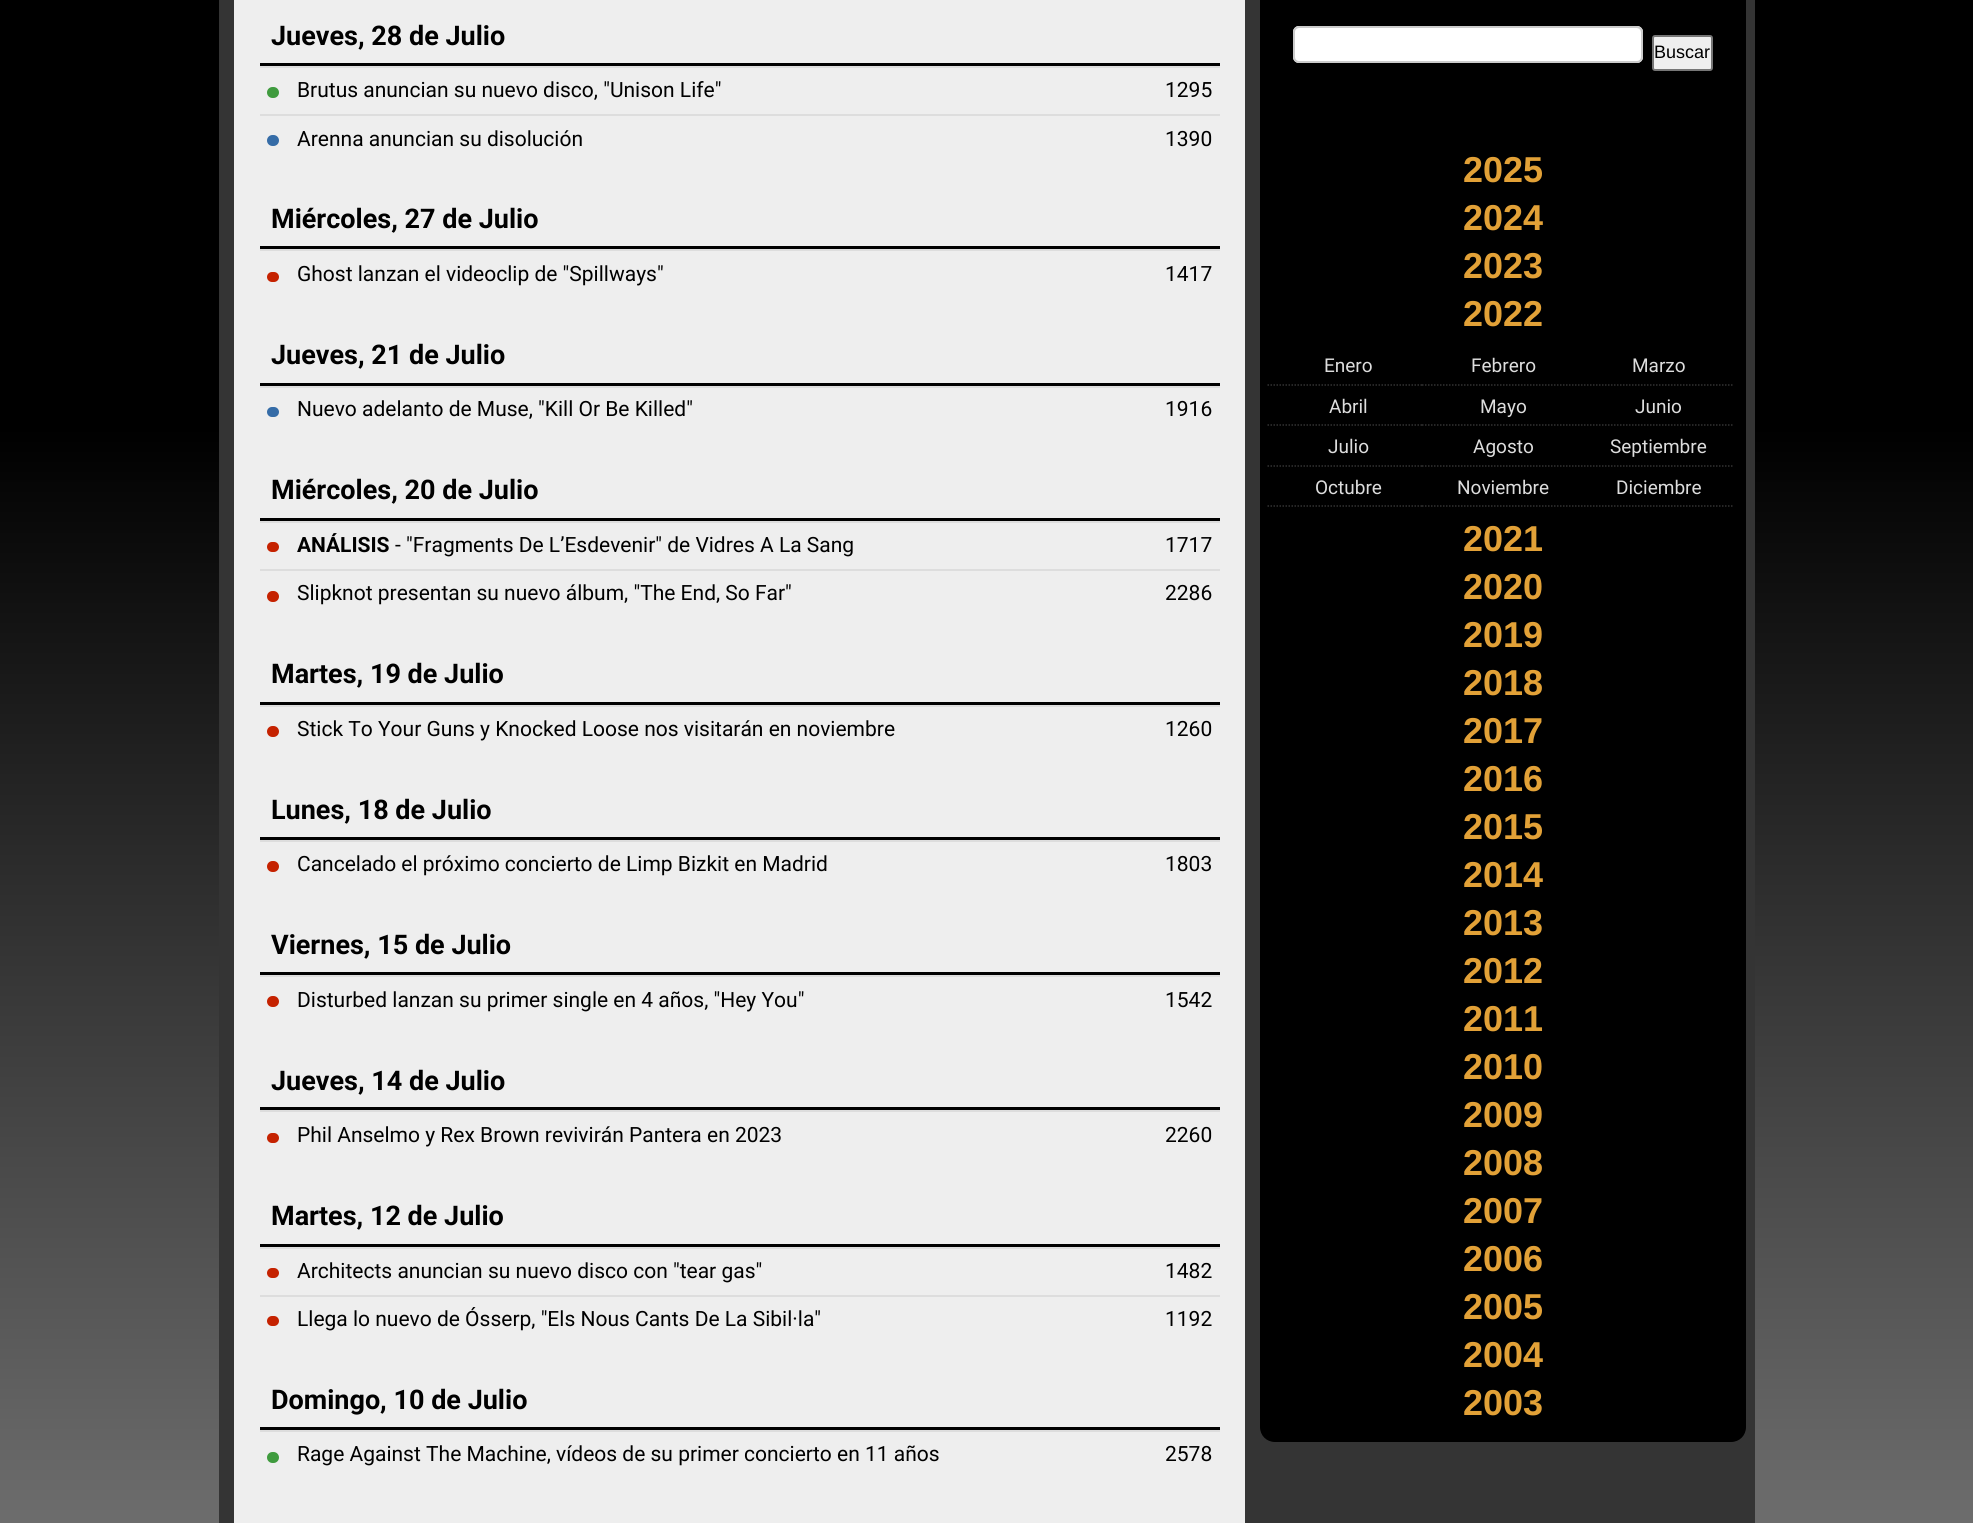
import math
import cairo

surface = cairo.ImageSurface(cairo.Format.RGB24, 1973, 1523)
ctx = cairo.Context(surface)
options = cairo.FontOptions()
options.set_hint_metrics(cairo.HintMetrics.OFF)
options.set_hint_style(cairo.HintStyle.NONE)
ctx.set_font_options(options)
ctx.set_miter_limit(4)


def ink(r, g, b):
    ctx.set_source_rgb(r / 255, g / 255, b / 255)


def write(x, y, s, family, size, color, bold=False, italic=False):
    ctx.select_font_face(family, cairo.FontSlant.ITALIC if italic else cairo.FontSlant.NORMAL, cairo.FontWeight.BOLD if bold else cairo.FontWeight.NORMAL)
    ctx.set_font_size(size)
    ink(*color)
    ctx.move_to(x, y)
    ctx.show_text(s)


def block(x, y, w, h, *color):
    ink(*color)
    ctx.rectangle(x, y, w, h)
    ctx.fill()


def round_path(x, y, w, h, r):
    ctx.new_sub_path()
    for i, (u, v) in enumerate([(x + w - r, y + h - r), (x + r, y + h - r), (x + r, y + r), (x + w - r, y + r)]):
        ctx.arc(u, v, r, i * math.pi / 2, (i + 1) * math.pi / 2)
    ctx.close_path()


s1 = dict(family="Roboto", size=27, color=(0, 0, 0), bold=True)
s2 = dict(family="Roboto", size=21, color=(0, 0, 0))
s3 = dict(family="Roboto", size=21, color=(0, 0, 0), bold=True)
s4 = dict(family="Liberation Sans", size=18, color=(0, 0, 0))
s5 = dict(family="Liberation Sans", size=36, color=(226, 161, 55), bold=True)
s6 = dict(family="Roboto", size=19, color=(221, 221, 221))

ink(255, 255, 255)
ctx.paint()
gradient = cairo.LinearGradient(987, 0, 987, 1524)
gradient.add_color_stop_rgba(0.01, 0, 0, 0, 1)
gradient.add_color_stop_rgba(0.28, 0, 0, 0, 1)
gradient.add_color_stop_rgba(1, 0.427, 0.427, 0.427, 1)
ctx.set_source(gradient)
ctx.rectangle(0, 0, 1973, 1523)
ctx.fill()
block(219, 0, 1536, 1523, 52, 52, 52)
block(234, 0, 1011, 1523, 238, 238, 238)
block(260, 63, 960, 3, 0, 0, 0)
write(271, 45, "Jueves, 28 de Julio", **s1)
block(260, 66, 960, 2, 221, 221, 221)
ink(63, 155, 62)
round_path(267, 87, 12, 11, 5.5)
ctx.fill()
write(297, 97, "Brutus anuncian su nuevo disco, \"Unison Life\"", **s2)
write(1165, 97, "1295", **s2)
block(260, 114, 960, 2, 221, 221, 221)
ink(53, 108, 167)
round_path(267, 135, 12, 11, 5.5)
ctx.fill()
write(297, 146, "Arenna anuncian su disolución", **s2)
write(1165, 146, "1390", **s2)
block(260, 246, 960, 3, 0, 0, 0)
write(271, 228, "Miércoles, 27 de Julio", **s1)
block(260, 249, 960, 2, 221, 221, 221)
ink(197, 34, 0)
round_path(267, 272, 12, 10, 5)
ctx.fill()
write(297, 281, "Ghost lanzan el videoclip de \"Spillways\"", **s2)
write(1165, 281, "1417", **s2)
block(260, 383, 960, 3, 0, 0, 0)
write(271, 364, "Jueves, 21 de Julio", **s1)
block(260, 386, 960, 2, 221, 221, 221)
ink(53, 108, 167)
round_path(267, 407, 12, 10, 5)
ctx.fill()
write(297, 416, "Nuevo adelanto de Muse, \"Kill Or Be Killed\"", **s2)
write(1165, 416, "1916", **s2)
block(260, 518, 960, 3, 0, 0, 0)
write(271, 499, "Miércoles, 20 de Julio", **s1)
block(260, 521, 960, 2, 221, 221, 221)
ink(197, 34, 0)
round_path(267, 542, 12, 10, 5)
ctx.fill()
write(297, 552, "ANÁLISIS", **s3)
write(395, 552, "- \"Fragments De L’Esdevenir\" de Vidres A La Sang", **s2)
write(1165, 552, "1717", **s2)
block(260, 569, 960, 2, 221, 221, 221)
ink(197, 34, 0)
round_path(267, 591, 12, 11, 5.5)
ctx.fill()
write(297, 600, "Slipknot presentan su nuevo álbum, \"The End, So Far\"", **s2)
write(1165, 600, "2286", **s2)
block(260, 702, 960, 3, 0, 0, 0)
write(271, 683, "Martes, 19 de Julio", **s1)
block(260, 705, 960, 2, 221, 221, 221)
ink(197, 34, 0)
round_path(267, 726, 12, 11, 5.5)
ctx.fill()
write(297, 736, "Stick To Your Guns y Knocked Loose nos visitarán en noviembre", **s2)
write(1165, 736, "1260", **s2)
block(260, 837, 960, 3, 0, 0, 0)
write(271, 819, "Lunes, 18 de Julio", **s1)
block(260, 840, 960, 2, 221, 221, 221)
ink(197, 34, 0)
round_path(267, 861, 12, 11, 5.5)
ctx.fill()
write(297, 871, "Cancelado el próximo concierto de Limp Bizkit en Madrid", **s2)
write(1165, 871, "1803", **s2)
block(260, 972, 960, 3, 0, 0, 0)
write(271, 954, "Viernes, 15 de Julio", **s1)
block(260, 975, 960, 2, 221, 221, 221)
ink(197, 34, 0)
round_path(267, 996, 12, 11, 5.5)
ctx.fill()
write(297, 1007, "Disturbed lanzan su primer single en 4 años, \"Hey You\"", **s2)
write(1165, 1007, "1542", **s2)
block(260, 1107, 960, 3, 0, 0, 0)
write(271, 1090, "Jueves, 14 de Julio", **s1)
block(260, 1110, 960, 2, 221, 221, 221)
ink(197, 34, 0)
round_path(267, 1133, 12, 10, 5)
ctx.fill()
write(297, 1142, "Phil Anselmo y Rex Brown revivirán Pantera en 2023", **s2)
write(1165, 1142, "2260", **s2)
block(260, 1244, 960, 3, 0, 0, 0)
write(271, 1225, "Martes, 12 de Julio", **s1)
block(260, 1247, 960, 2, 221, 221, 221)
ink(197, 34, 0)
round_path(267, 1268, 12, 10, 5)
ctx.fill()
write(297, 1278, "Architects anuncian su nuevo disco con \"tear gas\"", **s2)
write(1165, 1278, "1482", **s2)
block(260, 1295, 960, 2, 221, 221, 221)
ink(197, 34, 0)
round_path(267, 1316, 12, 10, 5)
ctx.fill()
write(297, 1326, "Llega lo nuevo de Ósserp, \"Els Nous Cants De La Sibil·la\"", **s2)
write(1165, 1326, "1192", **s2)
block(260, 1427, 960, 3, 0, 0, 0)
write(271, 1409, "Domingo, 10 de Julio", **s1)
block(260, 1430, 960, 2, 221, 221, 221)
ink(63, 155, 62)
round_path(267, 1452, 12, 11, 5.5)
ctx.fill()
write(297, 1461, "Rage Against The Machine, vídeos de su primer concierto en 11 años", **s2)
write(1165, 1461, "2578", **s2)
ctx.new_path()
ctx.move_to(1260, -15)
ctx.line_to(1746, -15)
ctx.line_to(1746, 1427)
ctx.curve_to(1746, 1435.5, 1739.5, 1442, 1731, 1442)
ctx.line_to(1275, 1442)
ctx.curve_to(1266.5, 1442, 1260, 1435.5, 1260, 1427)
ctx.close_path()
ctx.fill()
ink(255, 255, 255)
round_path(1293, 26, 350, 37, 6)
ctx.fill()
ink(236, 236, 236)
ctx.new_path()
ctx.move_to(1299, 28)
ctx.line_to(1636, 28)
ctx.curve_to(1639, 28, 1641, 31, 1641, 33)
ctx.line_to(1641, 32)
ctx.curve_to(1641, 29, 1639, 27, 1636, 27)
ctx.line_to(1300, 27)
ctx.curve_to(1298, 27, 1296, 28, 1295, 30)
ctx.curve_to(1296, 29, 1298, 28, 1299, 28)
ctx.close_path()
ctx.fill()
round_path(1294, 27, 348, 35, 5)
ink(204, 204, 204)
ctx.stroke()
ink(239, 239, 239)
round_path(1653, 36, 59, 34, 2)
ctx.fill_preserve()
ink(118, 118, 118)
ctx.stroke()
write(1654, 58, "Buscar", **s4)
write(1463, 182, "2025", **s5)
write(1463, 230, "2024", **s5)
write(1463, 278, "2023", **s5)
write(1463, 326, "2022", **s5)
ctx.new_path()
ctx.move_to(1267.5, 385)
ctx.line_to(1422, 385)
ink(51, 51, 51)
ctx.set_line_width(1.5)
ctx.set_dash([1.5, 1.5])
ctx.stroke()
write(1324, 372, "Enero", **s6)
ctx.new_path()
ctx.move_to(1422, 385)
ctx.line_to(1578, 385)
ink(51, 51, 51)
ctx.stroke()
write(1471, 372, "Febrero", **s6)
ctx.new_path()
ctx.move_to(1578, 385)
ctx.line_to(1734, 385)
ink(51, 51, 51)
ctx.stroke()
write(1632, 372, "Marzo", **s6)
ctx.new_path()
ctx.move_to(1267.5, 425)
ctx.line_to(1422, 425)
ink(51, 51, 51)
ctx.stroke()
write(1329, 413, "Abril", **s6)
ctx.new_path()
ctx.move_to(1422, 425)
ctx.line_to(1578, 425)
ink(51, 51, 51)
ctx.stroke()
write(1480, 413, "Mayo", **s6)
ctx.new_path()
ctx.move_to(1578, 425)
ctx.line_to(1734, 425)
ink(51, 51, 51)
ctx.stroke()
write(1635, 413, "Junio", **s6)
ctx.new_path()
ctx.move_to(1267.5, 466)
ctx.line_to(1422, 466)
ink(51, 51, 51)
ctx.stroke()
write(1328, 453, "Julio", **s6)
ctx.new_path()
ctx.move_to(1422, 466)
ctx.line_to(1578, 466)
ink(51, 51, 51)
ctx.stroke()
write(1473, 453, "Agosto", **s6)
ctx.new_path()
ctx.move_to(1578, 466)
ctx.line_to(1734, 466)
ink(51, 51, 51)
ctx.stroke()
write(1610, 453, "Septiembre", **s6)
ctx.new_path()
ctx.move_to(1267.5, 506)
ctx.line_to(1422, 506)
ink(51, 51, 51)
ctx.stroke()
write(1315, 494, "Octubre", **s6)
ctx.new_path()
ctx.move_to(1422, 506)
ctx.line_to(1578, 506)
ink(51, 51, 51)
ctx.stroke()
write(1457, 494, "Noviembre", **s6)
ctx.new_path()
ctx.move_to(1578, 506)
ctx.line_to(1734, 506)
ink(51, 51, 51)
ctx.stroke()
write(1616, 494, "Diciembre", **s6)
write(1463, 551, "2021", **s5)
write(1463, 599, "2020", **s5)
write(1463, 647, "2019", **s5)
write(1463, 695, "2018", **s5)
write(1463, 743, "2017", **s5)
write(1463, 791, "2016", **s5)
write(1463, 839, "2015", **s5)
write(1463, 887, "2014", **s5)
write(1463, 935, "2013", **s5)
write(1463, 983, "2012", **s5)
write(1463, 1031, "2011", **s5)
write(1463, 1079, "2010", **s5)
write(1463, 1127, "2009", **s5)
write(1463, 1175, "2008", **s5)
write(1463, 1223, "2007", **s5)
write(1463, 1271, "2006", **s5)
write(1463, 1319, "2005", **s5)
write(1463, 1367, "2004", **s5)
write(1463, 1415, "2003", **s5)
surface.write_to_png("screenshot.png")
